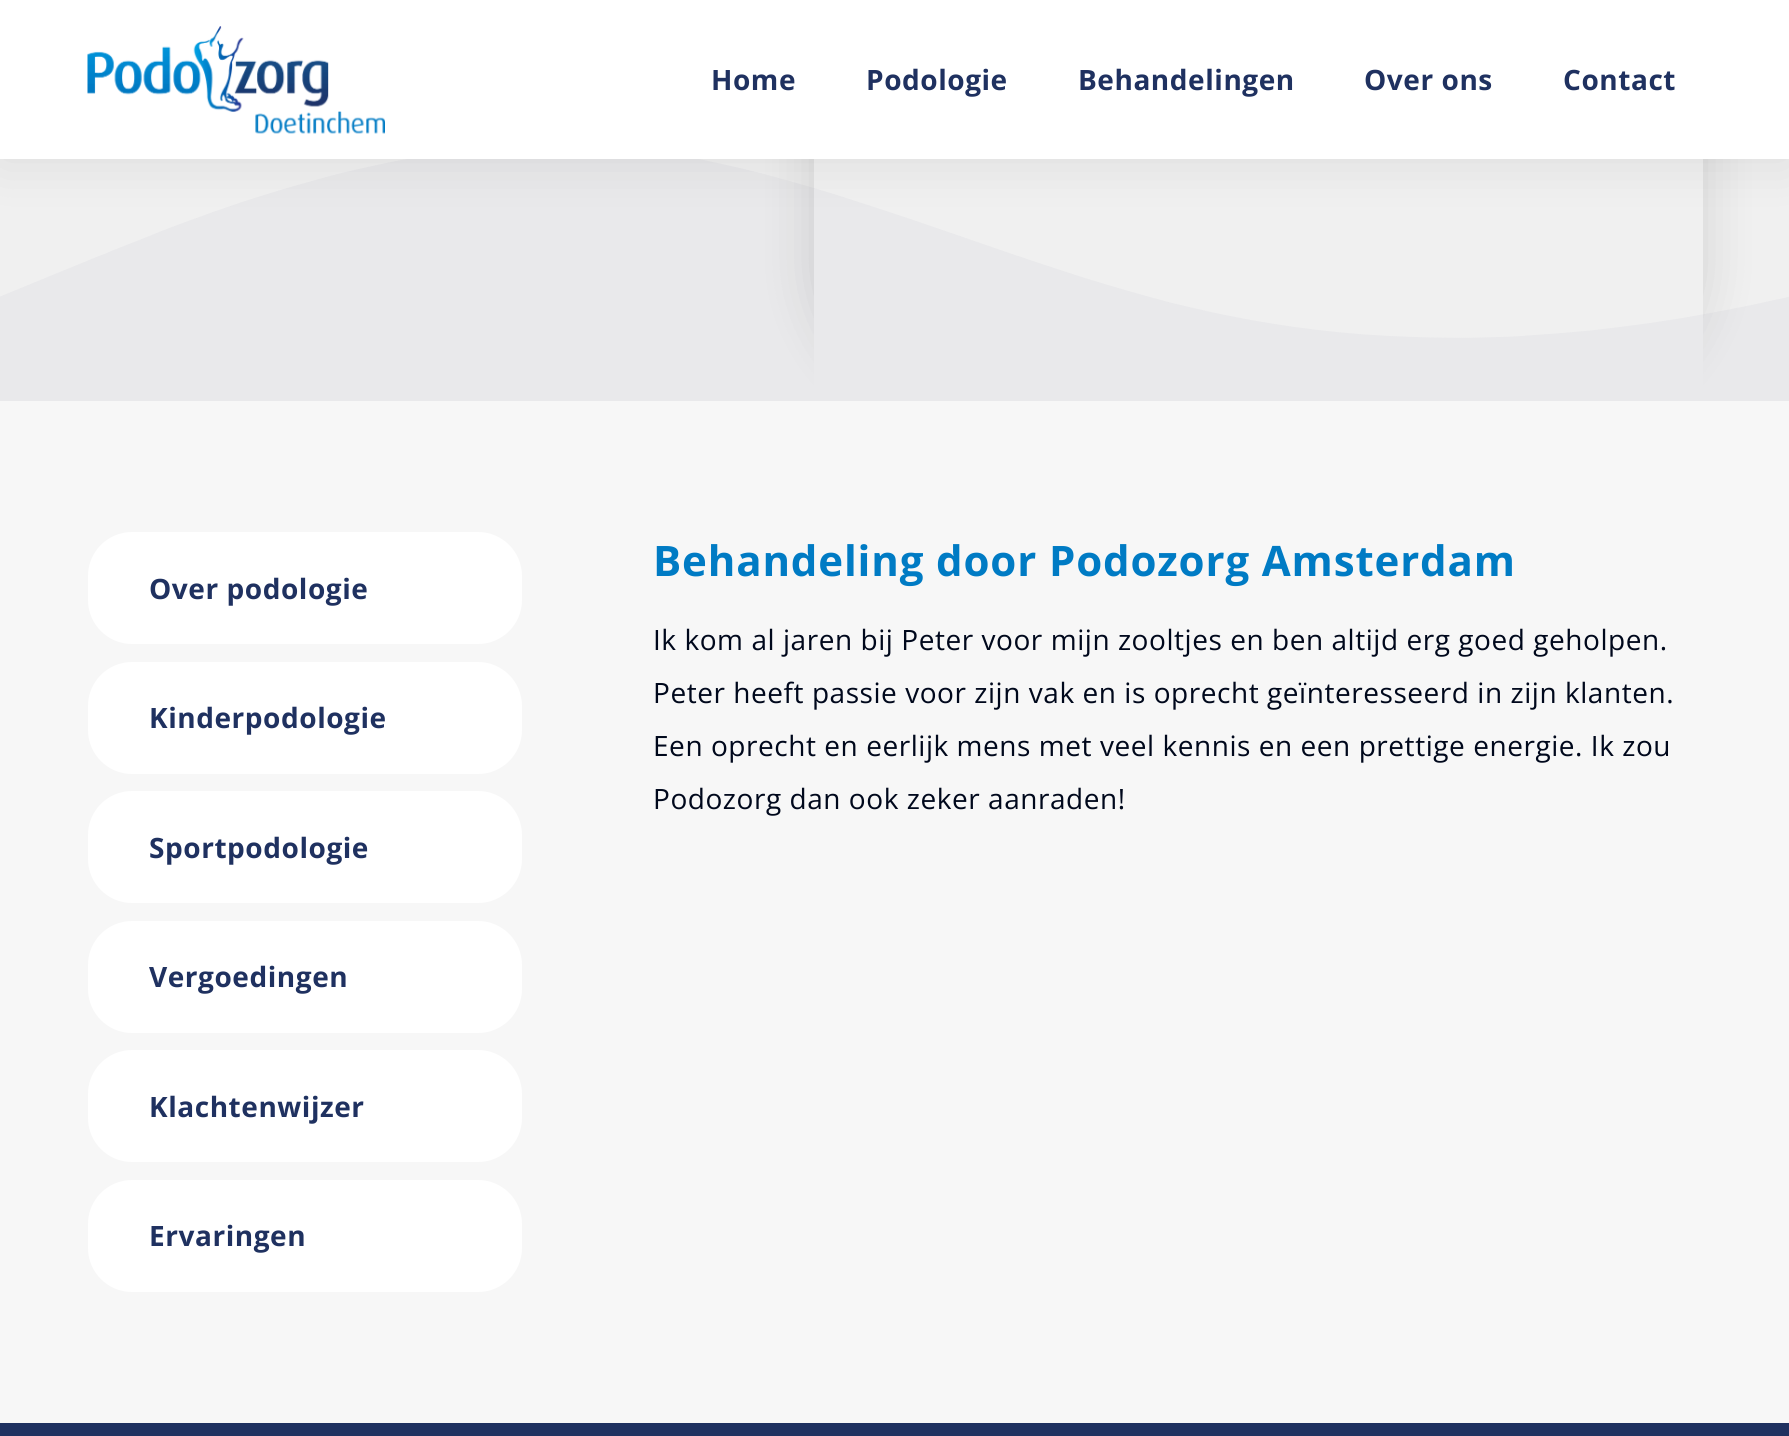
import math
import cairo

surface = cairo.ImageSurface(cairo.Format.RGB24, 1789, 1436)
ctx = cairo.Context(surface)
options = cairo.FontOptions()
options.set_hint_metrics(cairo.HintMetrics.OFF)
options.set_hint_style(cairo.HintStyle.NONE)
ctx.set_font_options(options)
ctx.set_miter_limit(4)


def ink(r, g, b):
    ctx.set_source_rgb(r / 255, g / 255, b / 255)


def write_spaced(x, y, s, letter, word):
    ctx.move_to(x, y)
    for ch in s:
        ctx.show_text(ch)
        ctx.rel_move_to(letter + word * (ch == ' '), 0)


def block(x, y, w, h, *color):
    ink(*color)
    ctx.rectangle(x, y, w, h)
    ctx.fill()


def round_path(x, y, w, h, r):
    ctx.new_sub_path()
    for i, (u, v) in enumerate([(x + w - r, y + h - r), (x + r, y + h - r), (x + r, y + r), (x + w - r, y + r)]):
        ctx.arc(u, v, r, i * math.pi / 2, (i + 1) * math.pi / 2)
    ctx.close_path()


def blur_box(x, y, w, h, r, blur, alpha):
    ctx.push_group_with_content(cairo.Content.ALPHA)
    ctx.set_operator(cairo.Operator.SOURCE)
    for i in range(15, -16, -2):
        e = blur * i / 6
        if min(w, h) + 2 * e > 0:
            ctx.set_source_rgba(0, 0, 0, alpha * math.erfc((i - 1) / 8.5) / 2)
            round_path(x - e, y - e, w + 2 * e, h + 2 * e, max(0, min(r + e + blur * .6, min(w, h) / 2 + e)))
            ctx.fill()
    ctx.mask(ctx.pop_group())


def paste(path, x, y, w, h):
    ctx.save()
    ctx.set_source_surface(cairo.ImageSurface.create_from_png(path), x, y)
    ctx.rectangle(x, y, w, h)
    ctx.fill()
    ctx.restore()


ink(31, 49, 96)
ctx.paint()
block(0, 159, 1789, 242, 240, 240, 240)
paste("pic1.png", 0, 159, 1789, 242)
ctx.save()
ctx.set_fill_rule(cairo.FillRule.EVEN_ODD)
ctx.new_path()
ctx.move_to(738, 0)
ctx.line_to(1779, 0)
ctx.line_to(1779, 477)
ctx.line_to(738, 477)
ctx.close_path()
ctx.move_to(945, -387)
ctx.line_to(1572, -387)
ctx.curve_to(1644.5, -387, 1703, -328.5, 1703, -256)
ctx.line_to(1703, 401)
ctx.line_to(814, 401)
ctx.line_to(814, -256)
ctx.curve_to(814, -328.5, 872.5, -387, 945, -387)
ctx.close_path()
ctx.clip()
ink(0, 0, 0)
blur_box(805, -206, 907, 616, 140, 22, 0.1)
ctx.restore()
ink(0, 0, 0)
blur_box(0, 0, 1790, 159, 0, 26, 0.1)
block(0, 0, 1789, 159, 255, 255, 255)
paste("pic2.png", 87, 26, 298, 108)
ctx.select_font_face("Open Sans", cairo.FontSlant.NORMAL, cairo.FontWeight.BOLD)
ctx.set_font_size(28)
ink(31, 49, 96)
write_spaced(711, 90, "Home", 0.55, 0)
write_spaced(866, 90, "Podologie", 0.55, 0)
write_spaced(1078, 90, "Behandelingen", 0.55, 0)
write_spaced(1364, 90, "Over ons", 0.55, 0)
write_spaced(1563, 90, "Contact", 0.55, 0)
block(0, 401, 1789, 1022, 247, 247, 247)
ink(255, 255, 255)
round_path(88, 532, 434, 112, 44)
ctx.fill()
ink(31, 49, 96)
write_spaced(149, 599, "Over podologie", 0.55, 0)
ink(255, 255, 255)
round_path(88, 662, 434, 112, 44)
ctx.fill()
ink(31, 49, 96)
write_spaced(149, 728, "Kinderpodologie", 0.55, 0)
ink(255, 255, 255)
round_path(88, 791, 434, 112, 44)
ctx.fill()
ink(31, 49, 96)
write_spaced(149, 858, "Sportpodologie", 0.55, 0)
ink(255, 255, 255)
round_path(88, 921, 434, 112, 44)
ctx.fill()
ink(31, 49, 96)
write_spaced(149, 987, "Vergoedingen", 0.55, 0)
ink(255, 255, 255)
round_path(88, 1050, 434, 112, 44)
ctx.fill()
ink(31, 49, 96)
write_spaced(149, 1117, "Klachtenwijzer", 0.55, 0)
ink(255, 255, 255)
round_path(88, 1180, 434, 112, 44)
ctx.fill()
ink(31, 49, 96)
write_spaced(149, 1246, "Ervaringen", 0.55, 0)
ctx.set_font_size(42)
ink(0, 123, 196)
write_spaced(653, 576, "Behandeling door Podozorg Amsterdam", 0.85, 0)
ctx.select_font_face("Open Sans")
ctx.set_font_size(28)
ink(0, 8, 28)
write_spaced(653, 650, "Ik kom al jaren bij Peter voor mijn zooltjes en ben altijd erg goed geholpen.", 0.55, 0)
write_spaced(653, 703, "Peter heeft passie voor zijn vak en is oprecht geïnteresseerd in zijn klanten.", 0.55, 0)
write_spaced(653, 756, "Een oprecht en eerlijk mens met veel kennis en een prettige energie. Ik zou", 0.55, 0)
write_spaced(653, 809, "Podozorg dan ook zeker aanraden!", 0.55, 0)
surface.write_to_png("screenshot.png")
